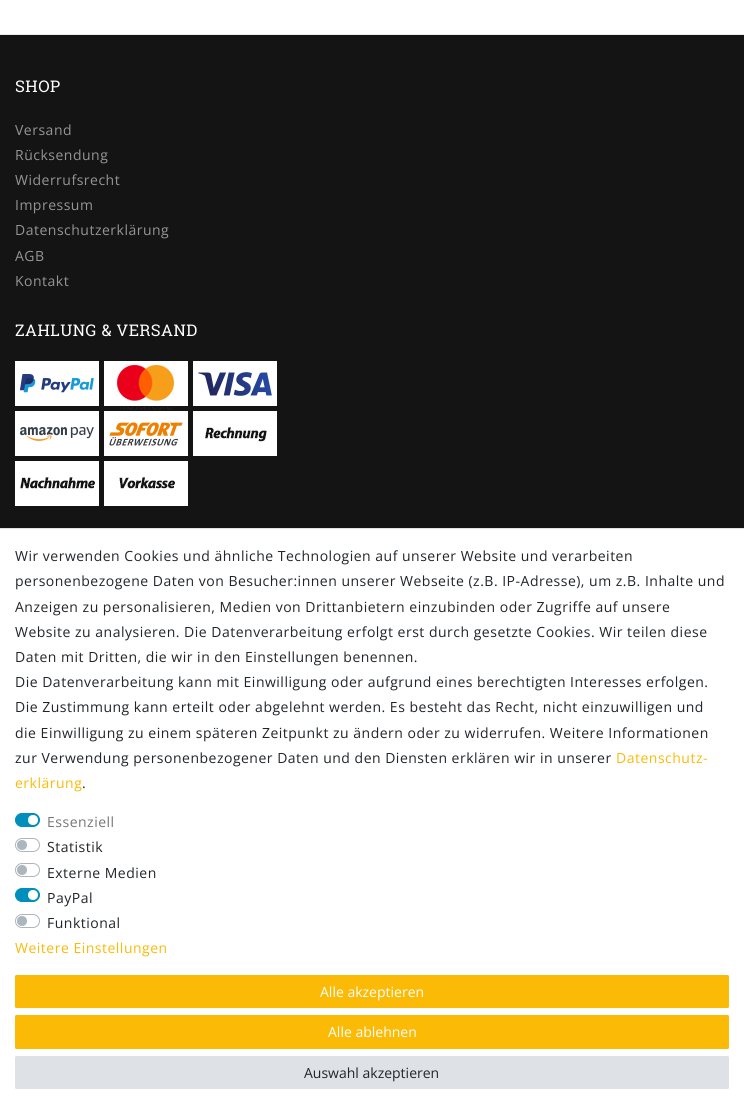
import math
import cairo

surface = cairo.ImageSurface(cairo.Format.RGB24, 744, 1110)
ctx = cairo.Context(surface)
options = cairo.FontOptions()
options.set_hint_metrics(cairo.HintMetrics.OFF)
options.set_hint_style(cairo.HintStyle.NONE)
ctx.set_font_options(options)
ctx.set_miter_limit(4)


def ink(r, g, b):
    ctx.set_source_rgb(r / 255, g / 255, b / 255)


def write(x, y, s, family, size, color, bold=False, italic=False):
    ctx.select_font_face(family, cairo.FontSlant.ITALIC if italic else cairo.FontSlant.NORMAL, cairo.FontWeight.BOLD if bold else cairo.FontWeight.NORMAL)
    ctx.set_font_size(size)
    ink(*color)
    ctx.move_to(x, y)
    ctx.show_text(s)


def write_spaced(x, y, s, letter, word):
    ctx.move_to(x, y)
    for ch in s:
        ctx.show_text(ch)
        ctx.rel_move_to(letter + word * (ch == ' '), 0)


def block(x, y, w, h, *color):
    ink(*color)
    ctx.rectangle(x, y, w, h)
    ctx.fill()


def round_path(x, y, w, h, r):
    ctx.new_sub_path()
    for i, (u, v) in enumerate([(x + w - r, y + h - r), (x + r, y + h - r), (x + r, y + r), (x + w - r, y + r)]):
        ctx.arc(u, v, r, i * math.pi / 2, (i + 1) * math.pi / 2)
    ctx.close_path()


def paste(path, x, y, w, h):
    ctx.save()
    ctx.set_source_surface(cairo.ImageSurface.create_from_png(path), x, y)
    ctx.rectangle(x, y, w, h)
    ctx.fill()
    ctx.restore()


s1 = dict(family="Open Sans", size=14, color=(255, 255, 255))
s2 = dict(family="Open Sans", size=14, color=(33, 37, 41))

ink(255, 255, 255)
ctx.paint()
block(0, 35, 744, 493, 20, 20, 20)
block(0, 34, 744, 1, 233, 233, 233)
ctx.select_font_face("Roboto Slab")
ctx.set_font_size(16.1)
ink(255, 255, 255)
write_spaced(15, 92, "SHOP", 0.5, 0)
ctx.select_font_face("Open Sans")
ctx.set_font_size(14)
ink(149, 149, 149)
write_spaced(15, 135, "Versand", 0.5, 0)
write_spaced(15, 160, "Rücksendung", 0.5, 0)
write_spaced(15, 185, "Widerrufsrecht", 0.5, 0)
write_spaced(15, 210, "Impressum", 0.5, 0)
write_spaced(15, 235, "Datenschutzerklärung", 0.5, 0)
write_spaced(15, 261, "AGB", 0.5, 0)
write_spaced(15, 286, "Kontakt", 0.5, 0)
ctx.select_font_face("Roboto Slab")
ctx.set_font_size(16.1)
ink(255, 255, 255)
write_spaced(15, 336, "ZAHLUNG & VERSAND", 0.5, 0)
paste("pic1.png", 15, 361, 262, 145)
block(0, 528, 744, 1, 222, 226, 230)
ctx.select_font_face("Open Sans")
ctx.set_font_size(14)
ink(33, 37, 41)
write_spaced(15, 561, "Wir verwenden Cookies und ähnliche Technologien auf unserer Website und verarbeiten", 0.5, 0)
write_spaced(15, 586, "personenbezogene Daten von Besucher:innen unserer Webseite (z.B. IP-Adresse), um z.B. Inhalte und", 0.5, 0)
write_spaced(15, 612, "Anzeigen zu personalisieren, Medien von Drittanbietern einzubinden oder Zugriffe auf unsere", 0.5, 0)
write_spaced(15, 637, "Website zu analysieren. Die Datenverarbeitung erfolgt erst durch gesetzte Cookies. Wir teilen diese", 0.5, 0)
write_spaced(15, 662, "Daten mit Dritten, die wir in den Einstellungen benennen.", 0.5, 0)
write_spaced(15, 687, "Die Datenverarbeitung kann mit Einwilligung oder aufgrund eines berechtigten Interesses erfolgen.", 0.5, 0)
write_spaced(15, 712, "Die Zustimmung kann erteilt oder abgelehnt werden. Es besteht das Recht, nicht einzuwilligen und", 0.5, 0)
write_spaced(15, 738, "die Einwilligung zu einem späteren Zeitpunkt zu ändern oder zu widerrufen. Weitere Informationen", 0.5, 0)
write_spaced(15, 763, "zur Verwendung personenbezogener Daten und den Diensten erklären wir in unserer", 0.5, 0)
ink(251, 186, 5)
write_spaced(616, 763, "Datenschutz-", 0.5, 0)
write_spaced(15, 788, "erklärung", 0.5, 0)
ink(33, 37, 41)
write_spaced(82, 788, ".", 0.5, 0)
ink(0, 142, 189)
round_path(15.5, 813.5, 24, 13, 6.5)
ctx.fill_preserve()
ctx.set_line_width(1)
ctx.stroke()
ink(255, 255, 255)
ctx.arc(33, 820, 5, 0, 2 * math.pi)
ctx.fill()
ink(118, 118, 118)
write_spaced(47, 827, "Essenziell", 0.5, 0)
round_path(15.5, 838.5, 24, 13, 6.5)
ink(173, 181, 189)
ctx.stroke()
ctx.arc(22, 845, 5, 0, 2 * math.pi)
ctx.fill()
ink(33, 37, 41)
write_spaced(47, 852, "Statistik", 0.5, 0)
round_path(15.5, 863.5, 24, 13, 6.5)
ink(173, 181, 189)
ctx.stroke()
ctx.arc(22, 870, 5, 0, 2 * math.pi)
ctx.fill()
ink(33, 37, 41)
write_spaced(47, 878, "Externe Medien", 0.5, 0)
ink(0, 142, 189)
round_path(15.5, 888.5, 24, 13, 6.5)
ctx.fill_preserve()
ctx.stroke()
ink(255, 255, 255)
ctx.arc(33, 895, 5, 0, 2 * math.pi)
ctx.fill()
ink(33, 37, 41)
write_spaced(47, 903, "PayPal", 0.5, 0)
round_path(15.5, 914.5, 24, 13, 6.5)
ink(173, 181, 189)
ctx.stroke()
ctx.arc(22, 921, 5, 0, 2 * math.pi)
ctx.fill()
ink(33, 37, 41)
write_spaced(47, 928, "Funktional", 0.5, 0)
ink(251, 186, 5)
write_spaced(15, 953, "Weitere Einstellungen", 0.5, 0)
round_path(15.5, 975.5, 713, 32, 1)
ctx.fill_preserve()
ctx.stroke()
write(320, 997, "Alle akzeptieren", **s1)
ink(251, 186, 5)
round_path(15.5, 1015.5, 713, 33, 1)
ctx.fill_preserve()
ctx.stroke()
write(328, 1037, "Alle ablehnen", **s1)
ink(222, 226, 230)
round_path(15.5, 1056.5, 713, 32, 1)
ctx.fill_preserve()
ctx.stroke()
write(304, 1078, "Auswahl akzeptieren", **s2)
surface.write_to_png("screenshot.png")
